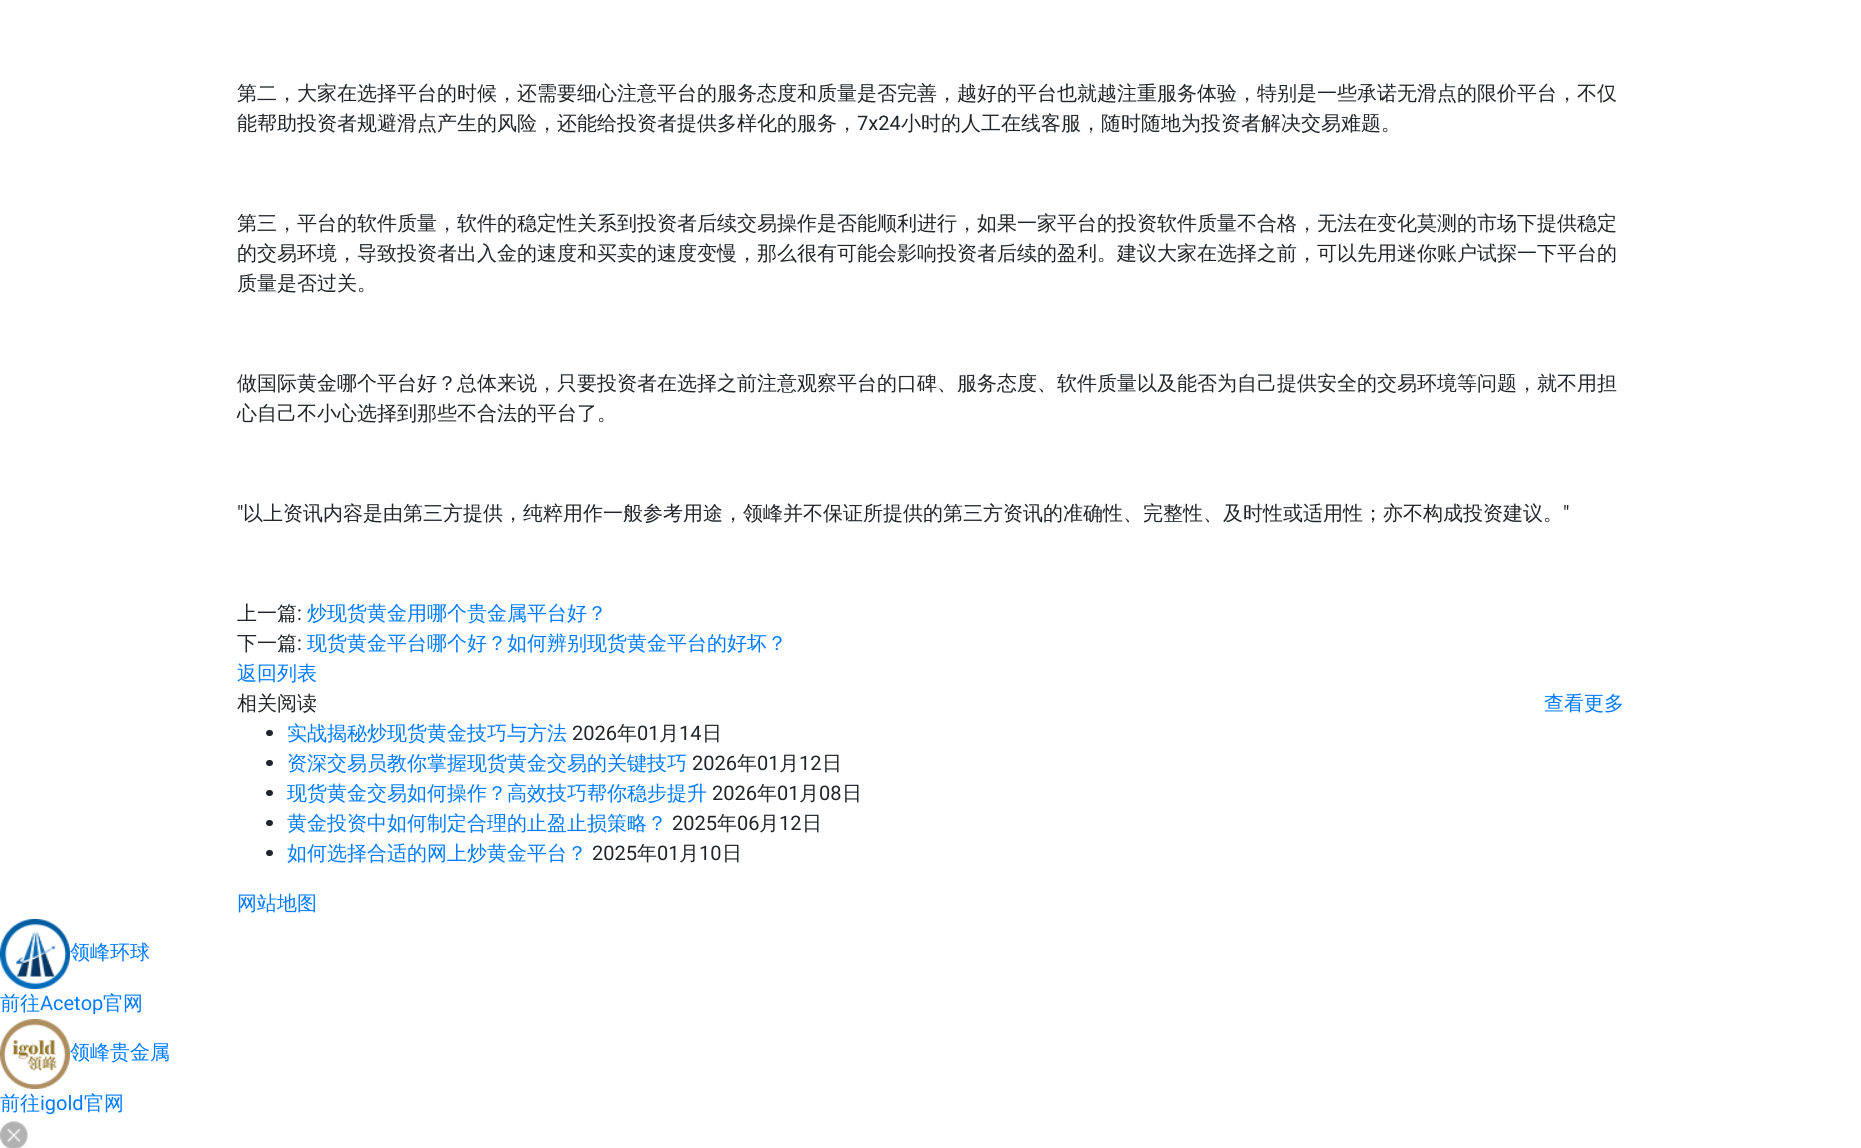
import math
import cairo

surface = cairo.ImageSurface(cairo.Format.RGB24, 1861, 1148)
ctx = cairo.Context(surface)
options = cairo.FontOptions()
options.set_hint_metrics(cairo.HintMetrics.OFF)
options.set_hint_style(cairo.HintStyle.NONE)
ctx.set_font_options(options)
ctx.set_miter_limit(4)


def ink(r, g, b):
    ctx.set_source_rgb(r / 255, g / 255, b / 255)


def write(x, y, s, family, size, color, bold=False, italic=False):
    ctx.select_font_face(family, cairo.FontSlant.ITALIC if italic else cairo.FontSlant.NORMAL, cairo.FontWeight.BOLD if bold else cairo.FontWeight.NORMAL)
    ctx.set_font_size(size)
    ink(*color)
    ctx.move_to(x, y)
    ctx.show_text(s)


def round_path(x, y, w, h, r):
    ctx.new_sub_path()
    for i, (u, v) in enumerate([(x + w - r, y + h - r), (x + r, y + h - r), (x + r, y + r), (x + w - r, y + r)]):
        ctx.arc(u, v, r, i * math.pi / 2, (i + 1) * math.pi / 2)
    ctx.close_path()


def paste(path, x, y, w, h):
    ctx.save()
    ctx.set_source_surface(cairo.ImageSurface.create_from_png(path), x, y)
    ctx.rectangle(x, y, w, h)
    ctx.fill()
    ctx.restore()


s1 = dict(family="WenQuanYi Zen Hei Medium", size=20, color=(33, 37, 41))
s2 = dict(family="Roboto", size=20, color=(33, 37, 41))
s3 = dict(family="WenQuanYi Zen Hei Medium", size=20, color=(0, 123, 255))
s4 = dict(family="Roboto", size=20, color=(0, 123, 255))

ink(255, 255, 255)
ctx.paint()
write(237, 100, "第二，大家在选择平台的时候，还需要细心注意平台的服务态度和质量是否完善，越好的平台也就越注重服务体验，特别是一些承诺无滑点的限价平台，不仅", **s1)
write(237, 130, "能帮助投资者规避滑点产生的风险，还能给投资者提供多样化的服务，", **s1)
write(857, 130, "7x24", **s2)
write(901, 130, "小时的人工在线客服，随时随地为投资者解决交易难题。", **s1)
write(237, 230, "第三，平台的软件质量，软件的稳定性关系到投资者后续交易操作是否能顺利进行，如果一家平台的投资软件质量不合格，无法在变化莫测的市场下提供稳定", **s1)
write(237, 260, "的交易环境，导致投资者出入金的速度和买卖的速度变慢，那么很有可能会影响投资者后续的盈利。建议大家在选择之前，可以先用迷你账户试探一下平台的", **s1)
write(237, 290, "质量是否过关。", **s1)
write(237, 390, "做国际黄金哪个平台好？总体来说，只要投资者在选择之前注意观察平台的口碑、服务态度、软件质量以及能否为自己提供安全的交易环境等问题，就不用担", **s1)
write(237, 420, "心自己不小心选择到那些不合法的平台了。", **s1)
write(237, 520, "\"", **s2)
write(243, 520, "以上资讯内容是由第三方提供，纯粹用作一般参考用途，领峰并不保证所提供的第三方资讯的准确性、完整性、及时性或适用性；亦不构成投资建议。", **s1)
write(1563, 520, "\"", **s2)
write(237, 620, "上一篇", **s1)
write(297, 620, ":", **s2)
write(307, 620, "炒现货黄金用哪个贵金属平台好？", **s3)
write(237, 650, "下一篇", **s1)
write(297, 650, ":", **s2)
write(307, 650, "现货黄金平台哪个好？如何辨别现货黄金平台的好坏？", **s3)
write(237, 680, "返回列表", **s3)
write(237, 710, "相关阅读", **s1)
write(1544, 710, "查看更多", **s3)
ink(33, 37, 41)
round_path(266, 730, 7, 6, 3)
ctx.fill()
write(287, 740, "实战揭秘炒现货黄金技巧与方法", **s3)
write(572, 740, "2026", **s2)
write(617, 740, "年", **s1)
write(637, 740, "01", **s2)
write(659, 740, "月", **s1)
write(679, 740, "14", **s2)
write(702, 740, "日", **s1)
round_path(266, 760, 7, 6, 3)
ctx.fill()
write(287, 770, "资深交易员教你掌握现货黄金交易的关键技巧", **s3)
write(692, 770, "2026", **s2)
write(737, 770, "年", **s1)
write(757, 770, "01", **s2)
write(779, 770, "月", **s1)
write(799, 770, "12", **s2)
write(822, 770, "日", **s1)
round_path(266, 790, 7, 6, 3)
ctx.fill()
write(287, 800, "现货黄金交易如何操作？高效技巧帮你稳步提升", **s3)
write(712, 800, "2026", **s2)
write(757, 800, "年", **s1)
write(777, 800, "01", **s2)
write(799, 800, "月", **s1)
write(819, 800, "08", **s2)
write(842, 800, "日", **s1)
round_path(266, 820, 7, 6, 3)
ctx.fill()
write(287, 830, "黄金投资中如何制定合理的止盈止损策略？", **s3)
write(672, 830, "2025", **s2)
write(717, 830, "年", **s1)
write(737, 830, "06", **s2)
write(759, 830, "月", **s1)
write(779, 830, "12", **s2)
write(802, 830, "日", **s1)
round_path(266, 850, 7, 6, 3)
ctx.fill()
write(287, 860, "如何选择合适的网上炒黄金平台？", **s3)
write(592, 860, "2025", **s2)
write(637, 860, "年", **s1)
write(657, 860, "01", **s2)
write(679, 860, "月", **s1)
write(699, 860, "10", **s2)
write(722, 860, "日", **s1)
write(237, 910, "网站地图", **s3)
paste("pic1.png", 0, 919, 70, 70)
write(70, 959, "领峰环球", **s3)
write(0, 1010, "前往", **s3)
write(40, 1010, "Acetop", **s4)
write(103, 1010, "官网", **s3)
paste("pic2.png", 0, 1019, 70, 70)
write(70, 1059, "领峰贵金属", **s3)
write(0, 1110, "前往", **s3)
write(40, 1110, "igold", **s4)
write(84, 1110, "官网", **s3)
paste("pic3.png", 0, 1121, 28, 27)
surface.write_to_png("screenshot.png")
